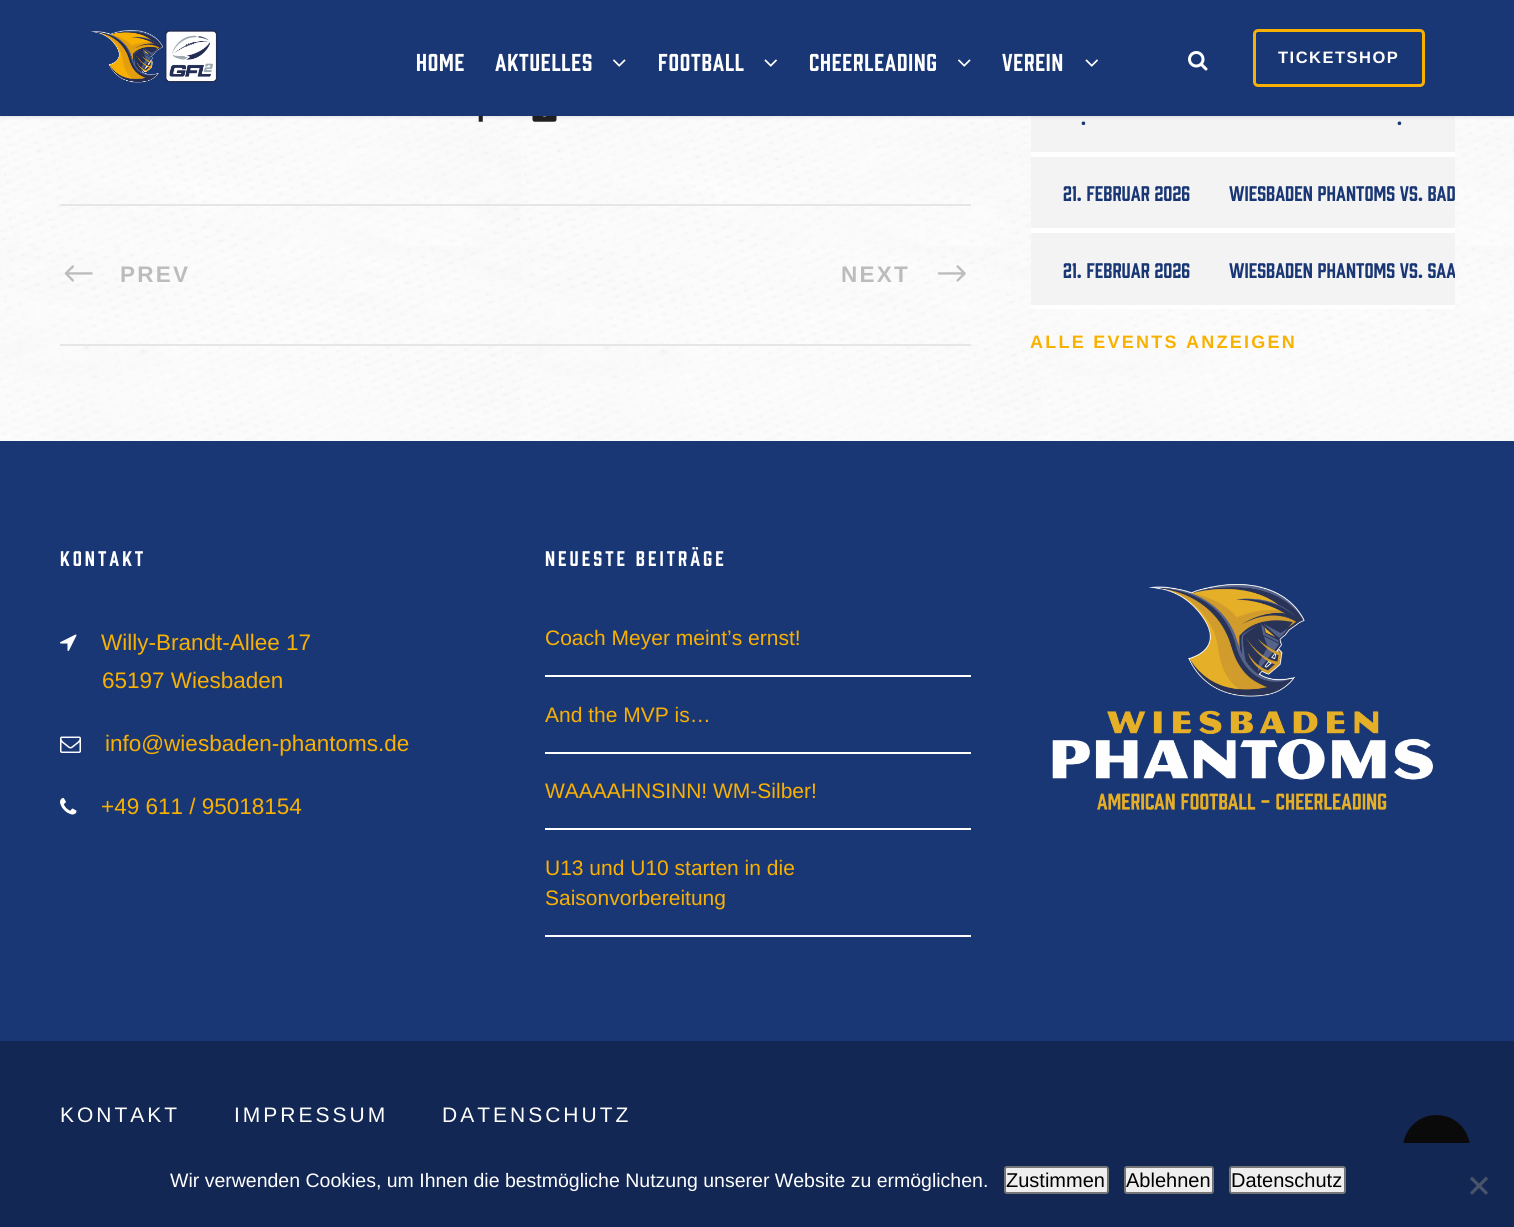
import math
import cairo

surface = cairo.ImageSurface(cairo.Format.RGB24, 1514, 1227)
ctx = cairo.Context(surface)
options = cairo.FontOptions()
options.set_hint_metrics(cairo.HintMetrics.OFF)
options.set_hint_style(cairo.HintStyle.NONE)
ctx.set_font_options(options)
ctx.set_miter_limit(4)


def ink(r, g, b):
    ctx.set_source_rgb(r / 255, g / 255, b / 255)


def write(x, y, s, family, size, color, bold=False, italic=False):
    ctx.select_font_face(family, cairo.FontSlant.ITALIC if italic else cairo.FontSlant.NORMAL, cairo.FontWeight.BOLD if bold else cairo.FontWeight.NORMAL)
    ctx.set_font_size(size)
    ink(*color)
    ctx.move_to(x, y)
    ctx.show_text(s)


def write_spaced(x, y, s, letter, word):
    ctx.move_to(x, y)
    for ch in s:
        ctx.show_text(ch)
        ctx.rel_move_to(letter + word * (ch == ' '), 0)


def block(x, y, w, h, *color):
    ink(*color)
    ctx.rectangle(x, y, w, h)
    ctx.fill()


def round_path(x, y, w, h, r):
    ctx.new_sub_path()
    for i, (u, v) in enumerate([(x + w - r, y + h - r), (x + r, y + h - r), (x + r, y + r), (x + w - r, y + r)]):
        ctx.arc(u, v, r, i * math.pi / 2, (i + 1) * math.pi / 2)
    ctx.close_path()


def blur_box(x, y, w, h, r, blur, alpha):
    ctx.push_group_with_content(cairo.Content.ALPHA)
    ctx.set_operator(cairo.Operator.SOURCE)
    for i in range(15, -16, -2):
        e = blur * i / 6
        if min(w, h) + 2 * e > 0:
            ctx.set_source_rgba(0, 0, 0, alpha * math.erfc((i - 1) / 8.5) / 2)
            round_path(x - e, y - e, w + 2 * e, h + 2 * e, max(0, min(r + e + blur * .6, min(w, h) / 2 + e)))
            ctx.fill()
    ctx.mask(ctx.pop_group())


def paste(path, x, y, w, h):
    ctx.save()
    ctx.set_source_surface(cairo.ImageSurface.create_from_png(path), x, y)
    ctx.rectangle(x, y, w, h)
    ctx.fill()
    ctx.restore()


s1 = dict(family="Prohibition", size=19.5, color=(26, 55, 117))
s2 = dict(family="Liberation Sans", size=22.5, color=(249, 177, 1))
s3 = dict(family="Liberation Sans", size=21, color=(249, 177, 1))
s4 = dict(family="Liberation Sans", size=19.5, color=(255, 255, 255))
s5 = dict(family="Liberation Sans", size=20, color=(0, 0, 0))

ink(255, 255, 255)
ctx.paint()
paste("pic5.png", 0, 116, 1514, 325)
paste("pic6.png", 478, 116, 5, 6)
paste("pic7.png", 532, 116, 25, 6)
block(1031, 116, 424, 36, 243, 243, 243)
ink(0, 0, 0)
blur_box(0, 2, 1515, 115, 0, 1.5, 0.1)
block(0, 0, 1514, 116, 26, 55, 117)
paste("pic1.png", 90, 30, 128, 53)
ctx.select_font_face("Prohibition")
ctx.set_font_size(22.5)
ink(255, 255, 255)
write_spaced(416, 71, "HOME", 0.75, 0)
write_spaced(495, 71, "AKTUELLES", 0.75, 0)
paste("pic2.png", 613, 59, 13, 8)
write_spaced(658, 71, "FOOTBALL", 0.75, 0)
paste("pic3.png", 764, 59, 13, 8)
write_spaced(809, 71, "CHEERLEADING", 0.75, 0)
paste("pic2.png", 958, 59, 13, 8)
write_spaced(1002, 71, "VEREIN", 0.75, 0)
paste("pic3.png", 1085, 59, 13, 8)
paste("pic4.png", 1188, 51, 20, 20)
round_path(1254.5, 30.5, 169, 55, 3.5)
ink(249, 177, 1)
ctx.set_line_width(3)
ctx.stroke()
ctx.select_font_face("Liberation Sans", cairo.FontSlant.NORMAL, cairo.FontWeight.BOLD)
ctx.set_font_size(16.5)
ink(255, 255, 255)
write_spaced(1278, 63, "TICKETSHOP", 1.5, 0)
block(60, 204, 911, 2, 230, 230, 230)
block(60, 344, 911, 2, 230, 230, 230)
paste("pic8.png", 64, 265, 29, 17)
ctx.set_font_size(22.5)
ink(188, 188, 188)
write_spaced(120, 282, "PREV", 2.25, 0)
write_spaced(841, 282, "NEXT", 2.25, 0)
paste("pic9.png", 937, 265, 29, 17)
block(1031, 152, 424, 5, 255, 255, 255)
write(1081, 125, ".", **s1)
write(1397, 125, ".", **s1)
block(1031, 157, 424, 71, 243, 243, 243)
block(1031, 228, 424, 5, 255, 255, 255)
write(1063, 201, "21. Februar 2026", **s1)
write(1229, 201, "Wiesbaden Phantoms vs. Bad", **s1)
block(1031, 233, 424, 72, 243, 243, 243)
block(1031, 305, 424, 4, 255, 255, 255)
write(1063, 278, "21. Februar 2026", **s1)
ctx.save()
ctx.rectangle(1031, 0, 424, 309)
ctx.clip()
write(1229, 278, "Wiesbaden Phantoms vs. Saa", **s1)
ctx.restore()
ctx.select_font_face("Liberation Sans", cairo.FontSlant.NORMAL, cairo.FontWeight.BOLD)
ctx.set_font_size(18)
ink(249, 177, 1)
write_spaced(1030, 348, "ALLE EVENTS ANZEIGEN", 2.25, 0)
block(0, 441, 1514, 600, 26, 55, 117)
ctx.select_font_face("Prohibition")
ctx.set_font_size(19.5)
ink(255, 255, 255)
write_spaced(60, 566, "KONTAKT", 3, 0)
paste("pic10.png", 60, 634, 17, 17)
write(101, 650, "Willy-Brandt-Allee 17", **s2)
write(102, 688, "65197 Wiesbaden", **s2)
paste("pic11.png", 60, 736, 21, 17)
write(105, 751, "info@wiesbaden-phantoms.de", **s2)
paste("pic12.png", 60, 798, 17, 17)
write(101, 814, "+49 611 / 95018154", **s2)
ctx.select_font_face("Prohibition")
ctx.set_font_size(19.5)
ink(255, 255, 255)
write_spaced(545, 566, "NEUESTE BEITRÄGE", 3, 0)
block(545, 675, 426, 2, 255, 255, 255)
write(545, 645, "Coach Meyer meint’s ernst!", **s3)
block(545, 752, 426, 2, 255, 255, 255)
write(545, 722, "And the MVP is…", **s3)
block(545, 828, 426, 2, 255, 255, 255)
write(545, 798, "WAAAAHNSINN! WM-Silber!", **s3)
block(545, 935, 426, 2, 255, 255, 255)
write(545, 875, "U13 und U10 starten in die", **s3)
write(545, 905, "Saisonvorbereitung", **s3)
paste("pic13.png", 1052, 584, 381, 226)
block(0, 1041, 1514, 102, 18, 39, 84)
ink(255, 255, 255)
write_spaced(60, 1122, "KONTAKT", 3, 0)
write_spaced(234, 1122, "IMPRESSUM", 3, 0)
write_spaced(442, 1122, "DATENSCHUTZ", 3, 0)
ink(10, 10, 10)
ctx.new_path()
ctx.arc(1436.5, 1148.5, 33.5, 0, 2 * math.pi)
ctx.fill()
block(0, 1143, 1514, 84, 18, 39, 84)
write(170, 1187, "Wir verwenden Cookies, um Ihnen die bestmögliche Nutzung unserer Website zu ermöglichen.", **s4)
ink(239, 239, 239)
round_path(1005, 1167, 103, 26, 2)
ctx.fill_preserve()
ink(118, 118, 118)
ctx.set_line_width(2)
ctx.stroke()
write(1006, 1187, "Zustimmen", **s5)
ink(239, 239, 239)
round_path(1125, 1167, 88, 26, 2)
ctx.fill_preserve()
ink(118, 118, 118)
ctx.stroke()
write(1126, 1187, "Ablehnen", **s5)
ink(239, 239, 239)
round_path(1230, 1167, 115, 26, 2)
ctx.fill_preserve()
ink(118, 118, 118)
ctx.stroke()
write(1231, 1187, "Datenschutz", **s5)
ink(73, 84, 106)
ctx.new_path()
ctx.move_to(1486, 1176.5)
ctx.line_to(1488, 1179)
ctx.line_to(1472, 1195)
ctx.line_to(1470, 1192.5)
ctx.close_path()
ctx.fill()
ctx.new_path()
ctx.move_to(1470, 1179)
ctx.line_to(1472, 1176.5)
ctx.line_to(1488, 1192.5)
ctx.line_to(1486, 1195)
ctx.close_path()
ctx.fill()
surface.write_to_png("screenshot.png")
